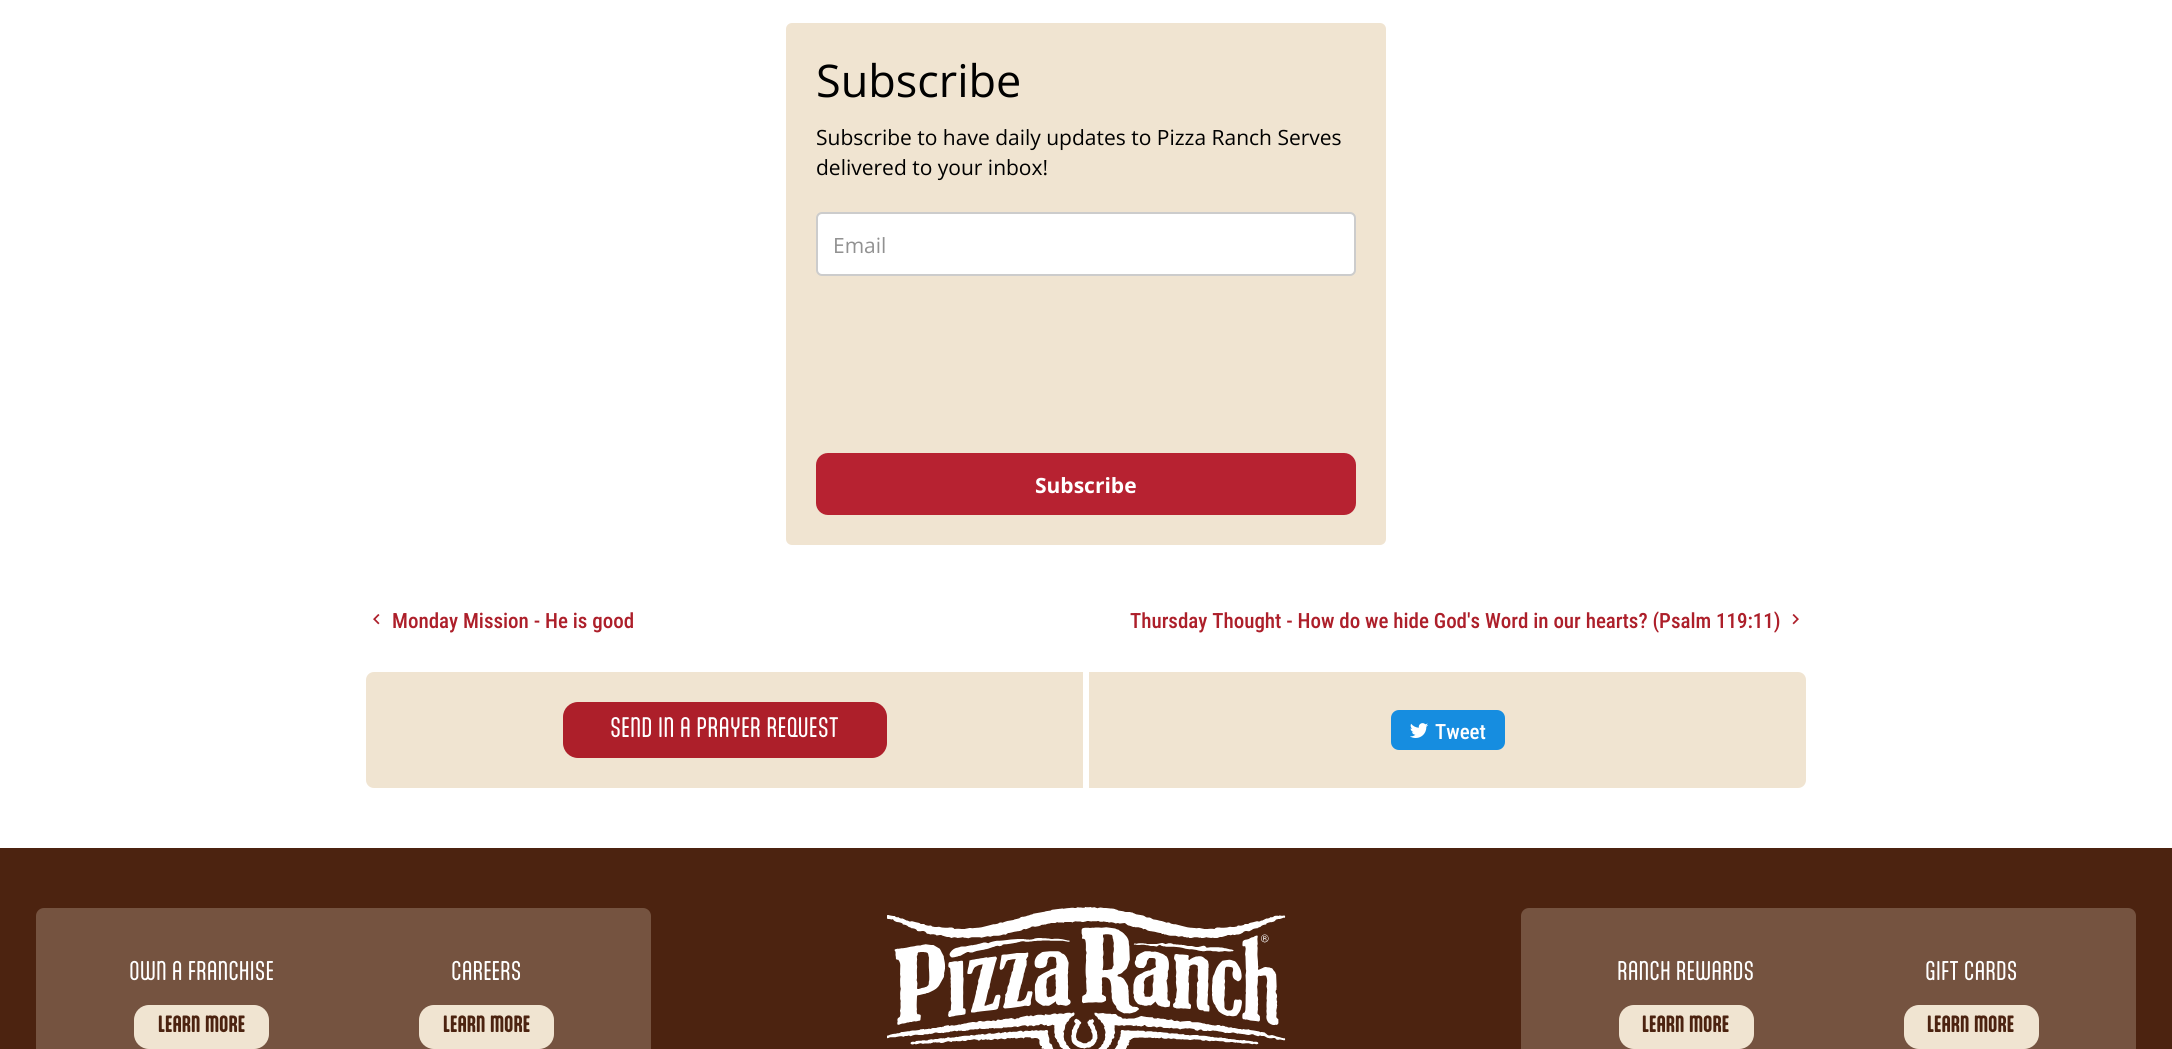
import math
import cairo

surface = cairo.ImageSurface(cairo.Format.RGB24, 2172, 1049)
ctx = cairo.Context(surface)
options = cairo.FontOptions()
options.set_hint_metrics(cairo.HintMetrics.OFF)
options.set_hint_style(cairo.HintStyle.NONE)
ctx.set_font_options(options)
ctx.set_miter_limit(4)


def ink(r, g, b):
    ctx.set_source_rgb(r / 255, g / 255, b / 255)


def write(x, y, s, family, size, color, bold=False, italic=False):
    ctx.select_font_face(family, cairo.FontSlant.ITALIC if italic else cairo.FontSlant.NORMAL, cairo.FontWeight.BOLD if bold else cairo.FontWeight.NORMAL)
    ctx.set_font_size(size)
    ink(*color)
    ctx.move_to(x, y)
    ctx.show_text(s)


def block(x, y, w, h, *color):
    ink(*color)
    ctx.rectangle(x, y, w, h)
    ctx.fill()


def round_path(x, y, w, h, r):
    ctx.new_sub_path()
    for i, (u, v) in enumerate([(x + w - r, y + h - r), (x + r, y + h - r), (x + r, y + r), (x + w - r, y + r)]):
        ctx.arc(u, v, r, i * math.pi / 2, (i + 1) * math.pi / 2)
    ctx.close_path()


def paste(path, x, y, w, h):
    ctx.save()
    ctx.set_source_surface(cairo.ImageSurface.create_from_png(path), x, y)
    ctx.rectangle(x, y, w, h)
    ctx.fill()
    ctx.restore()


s1 = dict(family="Open Sans", size=45, color=(0, 0, 0))
s2 = dict(family="Open Sans", size=21, color=(0, 0, 0))
s3 = dict(family="Open Sans", size=21, color=(145, 145, 145))
s4 = dict(family="Open Sans", size=21, color=(255, 255, 255), bold=True)
s5 = dict(family="Roboto Condensed Medium", size=21, color=(173, 31, 42))
s6 = dict(family="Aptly", size=24, color=(255, 255, 255))
s7 = dict(family="Roboto Condensed Medium", size=21, color=(255, 255, 255))
s8 = dict(family="Aptly", size=23, color=(255, 255, 255))
s9 = dict(family="Aptly", size=20, color=(76, 35, 16), bold=True)

ink(255, 255, 255)
ctx.paint()
ink(240, 228, 209)
round_path(786, 23, 600, 522, 6)
ctx.fill()
write(816, 97, "Subscribe", **s1)
write(816, 145, "Subscribe to have daily updates to Pizza Ranch Serves", **s2)
write(816, 175, "delivered to your inbox!", **s2)
ink(255, 255, 255)
round_path(817, 213, 538, 62, 5)
ctx.fill_preserve()
ink(204, 204, 204)
ctx.stroke()
write(833, 253, "Email", **s3)
ink(183, 34, 49)
round_path(816, 453, 540, 62, 12)
ctx.fill()
write(1035, 493, "Subscribe", **s4)
paste("pic1.png", 373, 614, 7, 11)
write(392, 628, "Monday Mission - He is good", **s5)
write(1130, 628, "Thursday Thought - How do we hide God's Word in our hearts? (Psalm 119:11)", **s5)
paste("pic2.png", 1792, 614, 7, 11)
ink(240, 228, 209)
ctx.new_path()
ctx.move_to(374, 672)
ctx.line_to(1083, 672)
ctx.line_to(1083, 788)
ctx.line_to(374, 788)
ctx.curve_to(369.5, 788, 366, 784.5, 366, 780)
ctx.line_to(366, 680)
ctx.curve_to(366, 675.5, 369.5, 672, 374, 672)
ctx.close_path()
ctx.fill()
ink(173, 31, 42)
round_path(563, 702, 324, 56, 15)
ctx.fill()
write(610, 737, "SEND IN A PRAYER REQUEST", **s6)
ink(240, 228, 209)
ctx.new_path()
ctx.move_to(1089, 672)
ctx.line_to(1798, 672)
ctx.curve_to(1802.5, 672, 1806, 675.5, 1806, 680)
ctx.line_to(1806, 780)
ctx.curve_to(1806, 784.5, 1802.5, 788, 1798, 788)
ctx.line_to(1089, 788)
ctx.close_path()
ctx.fill()
ink(22, 141, 224)
round_path(1391, 710, 114, 40, 8)
ctx.fill()
paste("pic3.png", 1410, 723, 18, 15)
write(1435, 739, "Tweet", **s7)
block(0, 848, 2172, 201, 76, 35, 16)
ink(117, 83, 64)
round_path(36, 908, 615, 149, 8)
ctx.fill()
write(129, 980, "OWN A FRANCHISE", **s8)
ink(240, 228, 209)
round_path(134, 1005, 135, 44, 15)
ctx.fill()
write(158, 1032, "LEARN MORE", **s9)
write(451, 980, "CAREERS", **s8)
ink(240, 228, 209)
round_path(419, 1005, 135, 44, 15)
ctx.fill()
write(443, 1032, "LEARN MORE", **s9)
paste("pic4.png", 887, 907, 399, 142)
ink(117, 83, 64)
round_path(1521, 908, 615, 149, 8)
ctx.fill()
write(1617, 980, "RANCH REWARDS", **s8)
ink(240, 228, 209)
round_path(1619, 1005, 135, 44, 15)
ctx.fill()
write(1642, 1032, "LEARN MORE", **s9)
write(1925, 980, "GIFT CARDS", **s8)
ink(240, 228, 209)
round_path(1904, 1005, 135, 44, 15)
ctx.fill()
write(1927, 1032, "LEARN MORE", **s9)
surface.write_to_png("screenshot.png")
